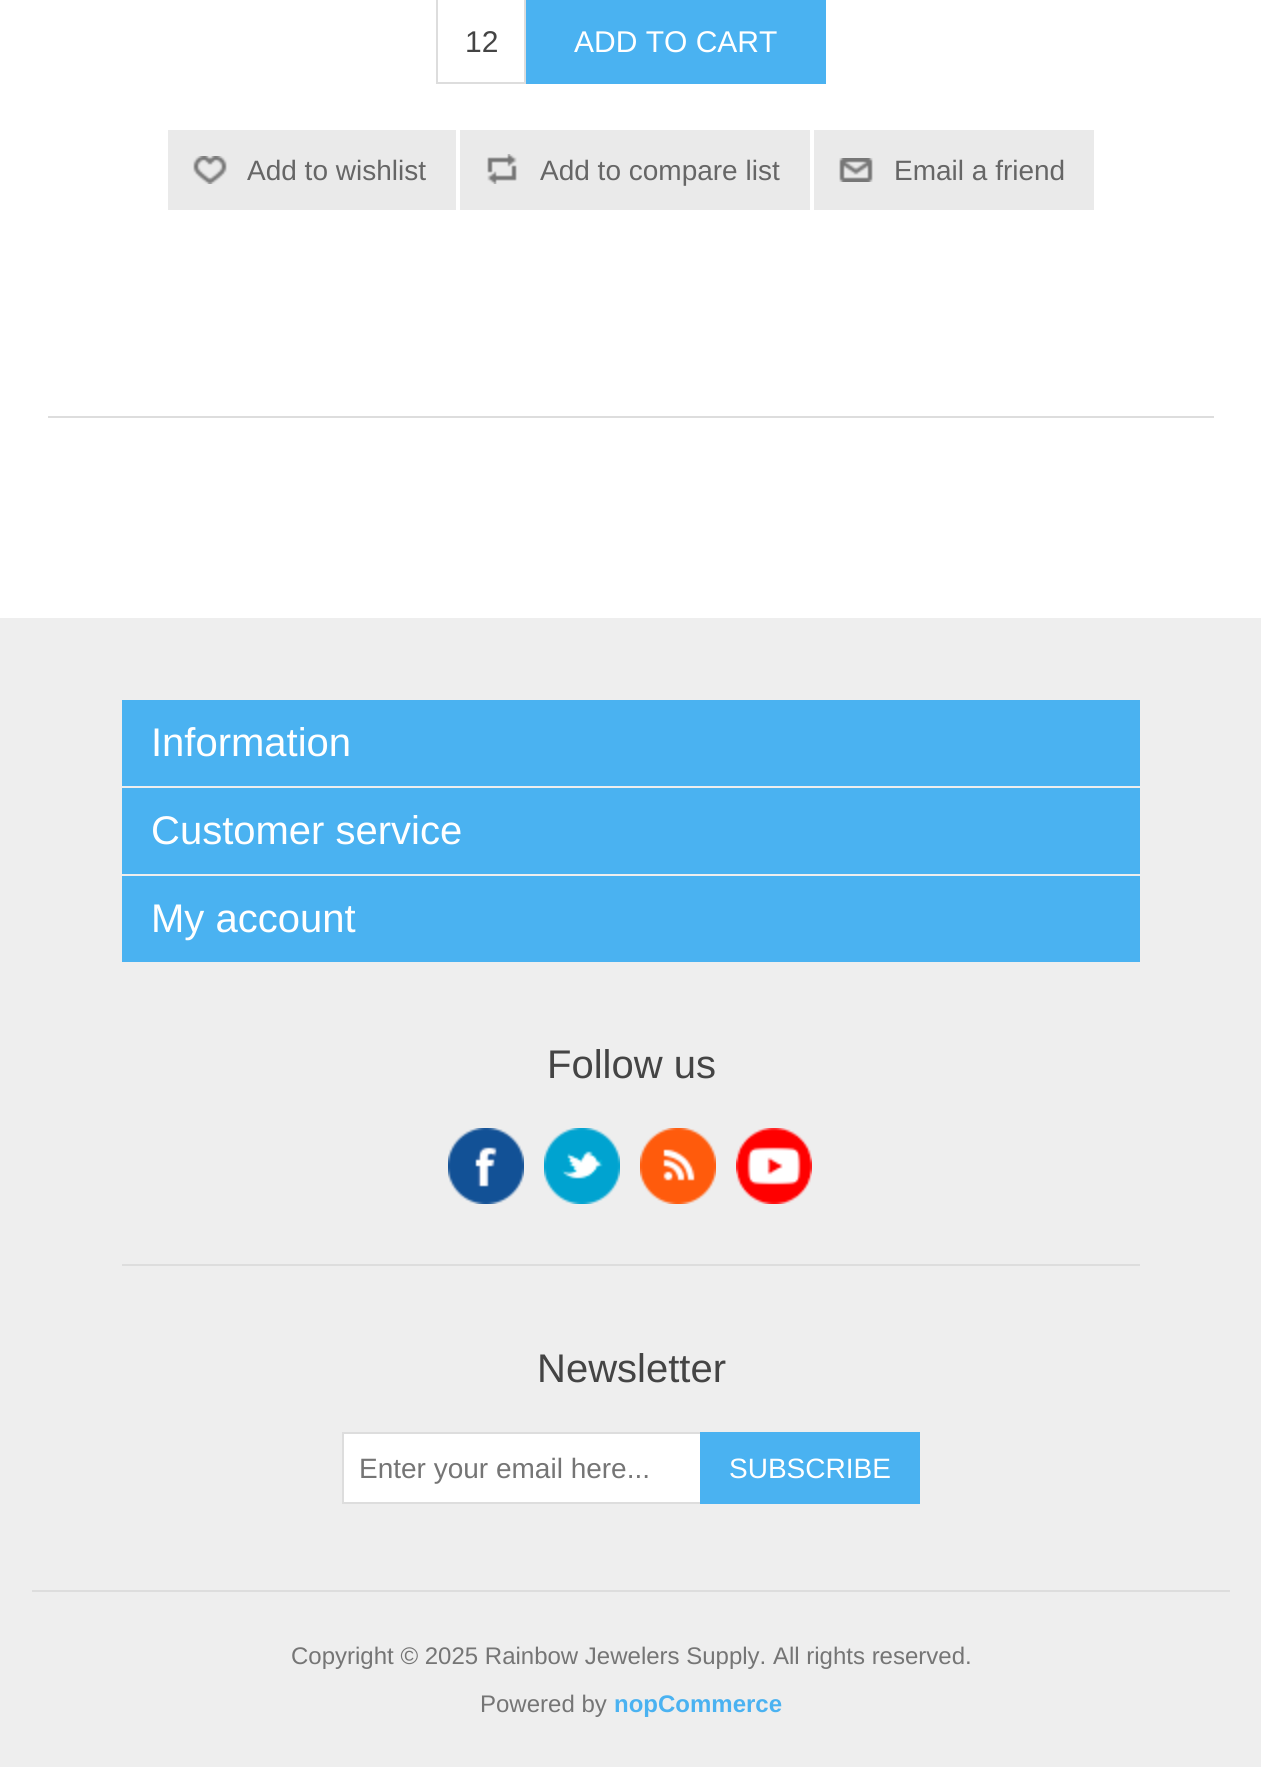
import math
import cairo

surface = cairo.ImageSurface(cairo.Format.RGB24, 1261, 1767)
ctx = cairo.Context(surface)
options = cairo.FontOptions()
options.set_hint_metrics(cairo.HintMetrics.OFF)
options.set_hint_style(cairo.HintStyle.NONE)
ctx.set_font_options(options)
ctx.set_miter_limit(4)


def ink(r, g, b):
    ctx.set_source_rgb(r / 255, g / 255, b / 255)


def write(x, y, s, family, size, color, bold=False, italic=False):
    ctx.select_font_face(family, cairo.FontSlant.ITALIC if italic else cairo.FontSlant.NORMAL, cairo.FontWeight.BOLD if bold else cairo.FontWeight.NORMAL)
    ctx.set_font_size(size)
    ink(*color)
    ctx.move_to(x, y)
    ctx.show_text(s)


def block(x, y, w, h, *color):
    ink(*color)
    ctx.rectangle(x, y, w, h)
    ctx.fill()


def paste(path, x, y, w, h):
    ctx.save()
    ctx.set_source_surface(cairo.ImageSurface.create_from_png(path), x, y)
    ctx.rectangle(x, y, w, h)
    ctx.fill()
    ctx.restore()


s1 = dict(family="Liberation Sans", size=30, color=(68, 68, 68))
s2 = dict(family="Liberation Sans", size=30, color=(255, 255, 255))
s3 = dict(family="Liberation Sans", size=28, color=(102, 102, 102))
s4 = dict(family="Liberation Sans", size=40, color=(255, 255, 255))
s5 = dict(family="Liberation Sans", size=40, color=(68, 68, 68))
s6 = dict(family="Liberation Sans", size=28, color=(117, 117, 117))
s7 = dict(family="Liberation Sans", size=28, color=(255, 255, 255))
s8 = dict(family="Liberation Sans", size=24, color=(117, 117, 117))
s9 = dict(family="Liberation Sans", size=24, color=(74, 178, 241), bold=True)

ink(255, 255, 255)
ctx.paint()
block(48, 416, 1166, 2, 221, 221, 221)
ctx.rectangle(437, -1, 88, 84)
ctx.stroke()
write(465, 52, "12", **s1)
block(526, 0, 300, 84, 74, 178, 241)
write(574, 52, "ADD TO CART", **s2)
block(168, 130, 288, 80, 234, 234, 234)
paste("pic1.png", 193, 156, 34, 28)
write(247, 180, "Add to wishlist", **s3)
block(460, 130, 350, 80, 234, 234, 234)
paste("pic2.png", 487, 154, 30, 30)
write(540, 180, "Add to compare list", **s3)
block(814, 130, 280, 80, 234, 234, 234)
paste("pic3.png", 839, 158, 34, 24)
write(894, 180, "Email a friend", **s3)
block(0, 618, 1261, 1149, 238, 238, 238)
block(32, 1590, 1198, 2, 221, 221, 221)
block(122, 700, 1018, 86, 74, 178, 241)
write(151, 756, "Information", **s4)
block(122, 788, 1018, 86, 74, 178, 241)
write(151, 844, "Customer service", **s4)
block(122, 876, 1018, 86, 74, 178, 241)
write(151, 932, "My account", **s4)
write(547, 1078, "Follow us", **s5)
block(122, 1264, 1018, 2, 221, 221, 221)
paste("pic4.png", 448, 1128, 76, 76)
paste("pic5.png", 544, 1128, 76, 76)
paste("pic6.png", 640, 1128, 76, 76)
paste("pic7.png", 736, 1128, 76, 76)
write(537, 1382, "Newsletter", **s5)
ink(255, 255, 255)
ctx.rectangle(343, 1433, 358, 70)
ctx.fill_preserve()
ink(221, 221, 221)
ctx.stroke()
write(359, 1478, "Enter your email here...", **s6)
block(700, 1432, 220, 72, 74, 178, 241)
write(729, 1478, "SUBSCRIBE", **s7)
write(291, 1664, "Copyright © 2025 Rainbow Jewelers Supply. All rights reserved.", **s8)
write(480, 1712, "Powered by", **s8)
write(614, 1712, "nopCommerce", **s9)
surface.write_to_png("screenshot.png")
